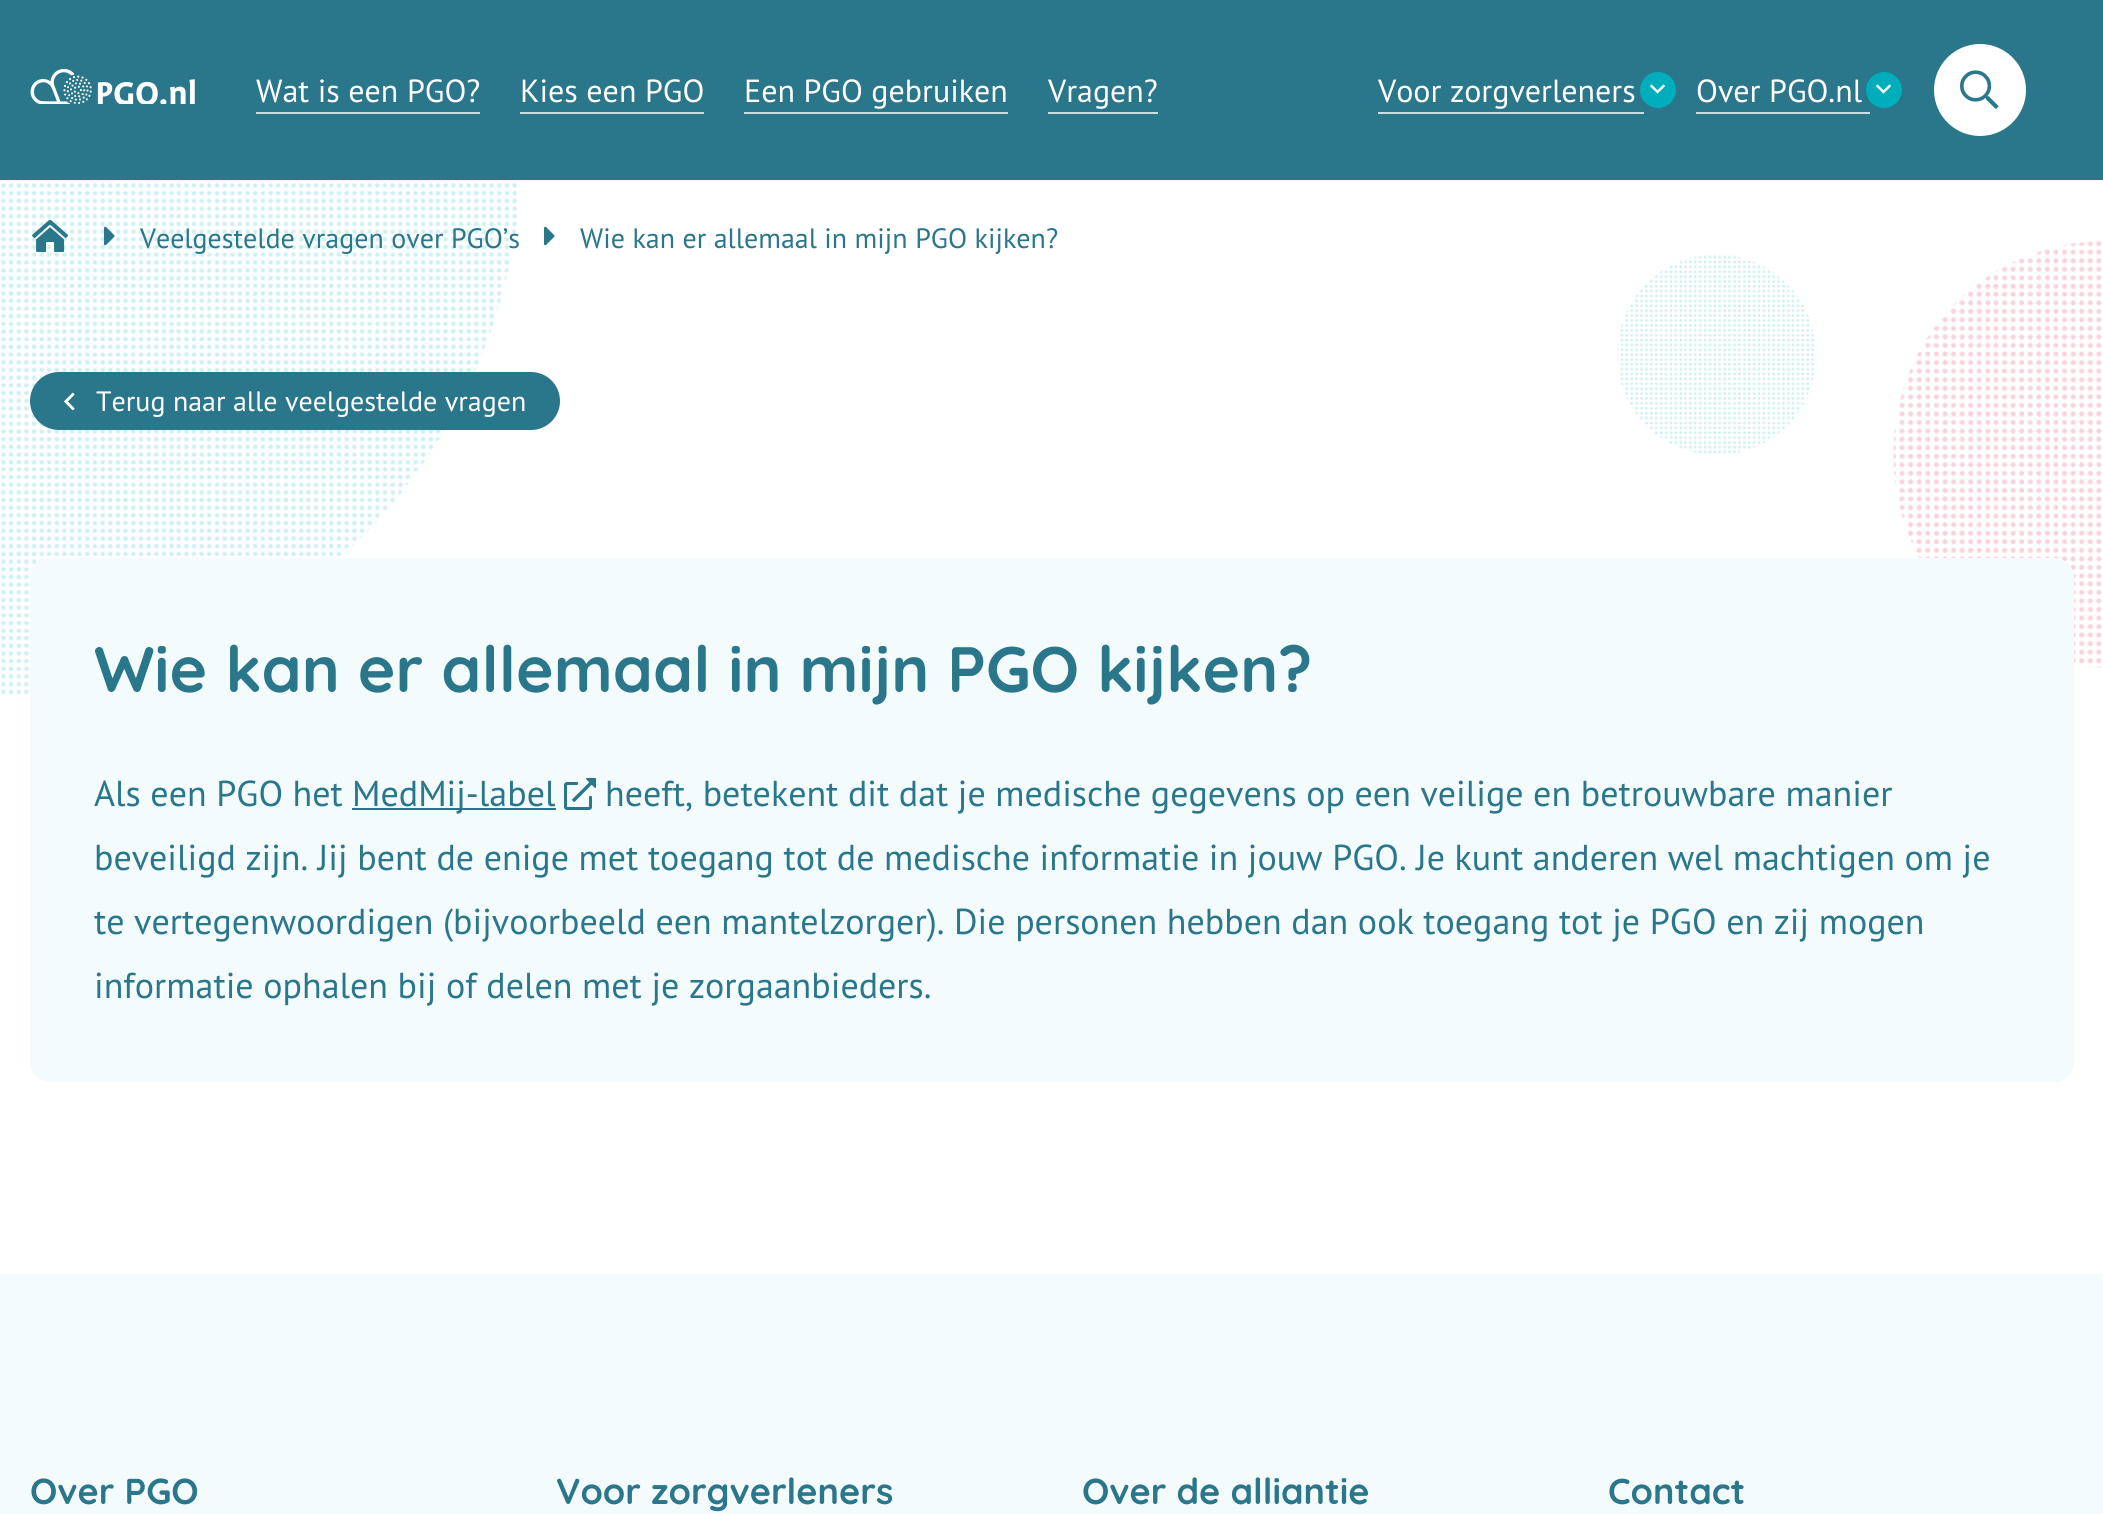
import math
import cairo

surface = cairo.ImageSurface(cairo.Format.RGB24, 2103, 1514)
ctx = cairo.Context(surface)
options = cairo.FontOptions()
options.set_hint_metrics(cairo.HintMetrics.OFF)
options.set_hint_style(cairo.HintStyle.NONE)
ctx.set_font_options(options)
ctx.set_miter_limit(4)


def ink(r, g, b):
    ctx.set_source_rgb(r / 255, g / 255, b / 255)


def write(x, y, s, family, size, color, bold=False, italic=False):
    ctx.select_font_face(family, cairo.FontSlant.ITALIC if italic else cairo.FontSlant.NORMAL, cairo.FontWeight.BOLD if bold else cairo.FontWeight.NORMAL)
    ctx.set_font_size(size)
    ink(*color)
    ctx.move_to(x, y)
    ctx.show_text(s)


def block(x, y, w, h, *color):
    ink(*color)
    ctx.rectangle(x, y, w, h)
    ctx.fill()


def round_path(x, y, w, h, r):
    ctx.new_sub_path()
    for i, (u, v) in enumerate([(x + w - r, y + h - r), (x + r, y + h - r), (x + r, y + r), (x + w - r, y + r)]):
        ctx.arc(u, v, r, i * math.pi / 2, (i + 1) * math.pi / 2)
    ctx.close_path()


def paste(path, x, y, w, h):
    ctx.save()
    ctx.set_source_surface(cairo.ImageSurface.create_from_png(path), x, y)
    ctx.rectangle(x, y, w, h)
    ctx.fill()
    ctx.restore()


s1 = dict(family="PT Sans", size=32, color=(255, 255, 255))
s2 = dict(family="PT Sans", size=28, color=(42, 118, 138))
s3 = dict(family="PT Sans", size=28, color=(255, 255, 255))
s4 = dict(family="Quicksand", size=64, color=(42, 118, 138), bold=True)
s5 = dict(family="PT Sans", size=36, color=(42, 118, 138))
s6 = dict(family="Quicksand", size=36, color=(42, 118, 138), bold=True)

ink(255, 255, 255)
ctx.paint()
paste("pic1.png", 0, 183, 2102, 515)
block(0, 0, 2103, 180, 42, 118, 138)
paste("pic2.png", 30, 68, 165, 36)
write(256, 102, "Wat is een PGO?", **s1)
block(256, 112, 224, 2, 202, 221, 226)
write(520, 102, "Kies een PGO", **s1)
block(520, 112, 184, 2, 202, 221, 226)
write(744, 102, "Een PGO gebruiken", **s1)
block(744, 112, 264, 2, 202, 221, 226)
write(1048, 102, "Vragen?", **s1)
block(1048, 112, 110, 2, 202, 221, 226)
write(1378, 102, "Voor zorgverleners", **s1)
ink(0, 173, 186)
ctx.new_path()
ctx.arc(1658, 90, 18, 0, 2 * math.pi)
ctx.fill()
paste("pic3.png", 1650, 84, 15, 10)
block(1378, 112, 266, 2, 202, 221, 226)
write(1696, 102, "Over PGO.nl", **s1)
ink(0, 173, 186)
ctx.new_path()
ctx.arc(1884, 90, 18, 0, 2 * math.pi)
ctx.fill()
paste("pic3.png", 1876, 84, 15, 10)
block(1696, 112, 174, 2, 202, 221, 226)
ink(255, 255, 255)
ctx.arc(1980, 90, 44, 0, 2 * math.pi)
ctx.fill_preserve()
ctx.set_line_width(4)
ctx.stroke()
paste("pic4.png", 1960, 70, 39, 39)
paste("pic5.png", 32, 220, 36, 32)
paste("pic6.png", 104, 226, 11, 20)
write(140, 248, "Veelgestelde vragen over PGO’s", **s2)
paste("pic7.png", 544, 226, 11, 20)
write(580, 248, "Wie kan er allemaal in mijn PGO kijken?", **s2)
round_path(31, 373, 528, 56, 28)
ctx.fill_preserve()
ctx.set_line_width(2)
ctx.stroke()
paste("pic8.png", 64, 392, 11, 19)
write(96, 411, "Terug naar alle veelgestelde vragen", **s3)
ink(243, 251, 252)
round_path(30, 558, 2044, 524, 20)
ctx.fill()
write(94, 692, "Wie kan er allemaal in mijn PGO kijken?", **s4)
write(94, 806, "Als een PGO het", **s5)
block(352, 808, 204, 2, 42, 118, 138)
write(352, 806, "MedMij-label", **s5)
paste("pic9.png", 564, 778, 32, 32)
write(605, 806, "heeft, betekent dit dat je medische gegevens op een veilige en betrouwbare manier", **s5)
write(94, 870, "beveiligd zijn. Jij bent de enige met toegang tot de medische informatie in jouw PGO. Je kunt anderen wel machtigen om je", **s5)
write(94, 934, "te vertegenwoordigen (bijvoorbeeld een mantelzorger). Die personen hebben dan ook toegang tot je PGO en zij mogen", **s5)
write(94, 998, "informatie ophalen bij of delen met je zorgaanbieders.", **s5)
block(0, 1274, 2103, 240, 243, 251, 252)
write(30, 1504, "Over PGO", **s6)
write(556, 1504, "Voor zorgverleners", **s6)
write(1082, 1504, "Over de alliantie", **s6)
write(1608, 1504, "Contact", **s6)
surface.write_to_png("screenshot.png")
